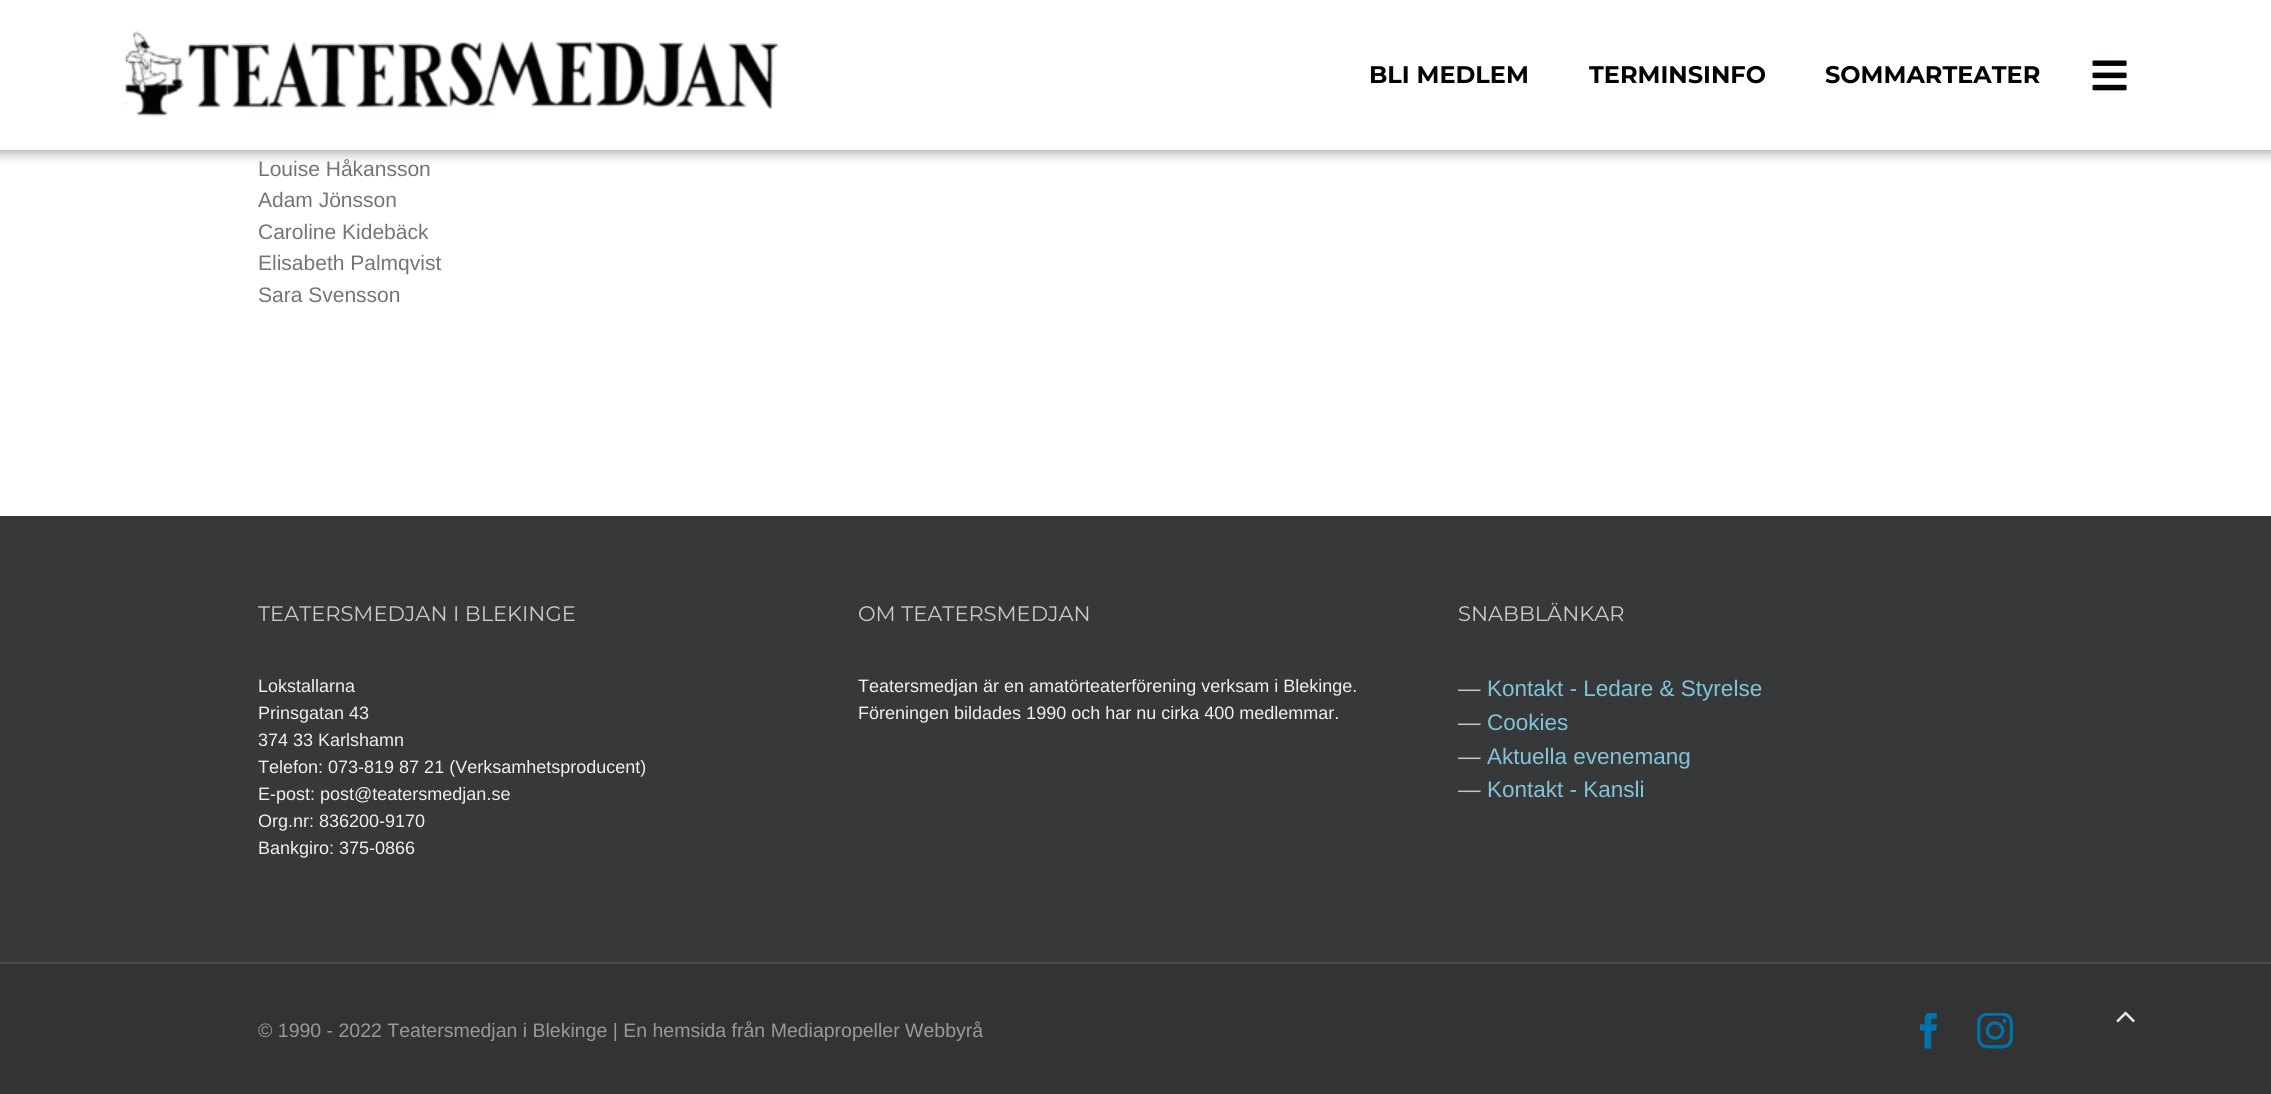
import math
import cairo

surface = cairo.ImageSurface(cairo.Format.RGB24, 2271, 1094)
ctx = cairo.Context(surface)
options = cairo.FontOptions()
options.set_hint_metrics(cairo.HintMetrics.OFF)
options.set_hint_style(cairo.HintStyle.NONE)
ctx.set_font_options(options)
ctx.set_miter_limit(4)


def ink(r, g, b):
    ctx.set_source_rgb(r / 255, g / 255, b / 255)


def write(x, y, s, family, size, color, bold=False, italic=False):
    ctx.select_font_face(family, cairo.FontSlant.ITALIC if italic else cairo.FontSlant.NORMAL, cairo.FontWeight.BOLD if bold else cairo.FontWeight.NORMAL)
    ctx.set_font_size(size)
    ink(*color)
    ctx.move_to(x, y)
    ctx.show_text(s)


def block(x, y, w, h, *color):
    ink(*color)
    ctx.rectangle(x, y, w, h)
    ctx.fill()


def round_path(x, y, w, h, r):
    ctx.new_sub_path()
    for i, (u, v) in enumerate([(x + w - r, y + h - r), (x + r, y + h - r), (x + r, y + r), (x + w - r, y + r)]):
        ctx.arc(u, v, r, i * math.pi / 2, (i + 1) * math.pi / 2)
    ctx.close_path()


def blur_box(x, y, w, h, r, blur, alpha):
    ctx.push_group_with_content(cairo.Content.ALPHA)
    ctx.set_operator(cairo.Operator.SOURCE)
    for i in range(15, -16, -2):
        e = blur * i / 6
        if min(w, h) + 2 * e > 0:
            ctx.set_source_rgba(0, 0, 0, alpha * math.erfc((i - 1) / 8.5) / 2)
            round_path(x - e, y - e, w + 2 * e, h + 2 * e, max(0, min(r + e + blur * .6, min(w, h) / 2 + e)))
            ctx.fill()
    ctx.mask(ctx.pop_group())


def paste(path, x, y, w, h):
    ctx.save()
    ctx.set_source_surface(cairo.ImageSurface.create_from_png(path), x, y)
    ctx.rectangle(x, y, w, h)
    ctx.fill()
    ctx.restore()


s1 = dict(family="Montserrat", size=24, color=(2, 3, 3), bold=True)
s2 = dict(family="Liberation Sans", size=21, color=(116, 116, 116))
s3 = dict(family="Montserrat", size=21, color=(204, 204, 204))
s4 = dict(family="Liberation Sans", size=18, color=(241, 241, 241))
s5 = dict(family="Liberation Sans", size=22.5, color=(196, 196, 196))
s6 = dict(family="Liberation Sans", size=22.5, color=(132, 195, 214))
s7 = dict(family="Liberation Sans", size=19.5, color=(153, 153, 153))

ink(255, 255, 255)
ctx.paint()
ink(0, 0, 0)
blur_box(-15, -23, 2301, 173, 0, 7.5, 0.5)
block(0, 0, 2271, 150, 255, 255, 255)
paste("pic1.png", 124, 31, 655, 85)
write(1369, 83, "BLI MEDLEM", **s1)
write(1589, 83, "TERMINSINFO", **s1)
write(1825, 83, "SOMMARTEATER", **s1)
paste("pic2.png", 2092, 60, 35, 31)
write(258, 176, "Louise Håkansson", **s2)
write(258, 207, "Adam Jönsson", **s2)
write(258, 239, "Caroline Kidebäck", **s2)
write(258, 270, "Elisabeth Palmqvist", **s2)
write(258, 302, "Sara Svensson", **s2)
block(0, 516, 2271, 446, 54, 56, 57)
write(258, 621, "TEATERSMEDJAN I BLEKINGE", **s3)
write(258, 692, "Lokstallarna", **s4)
write(258, 719, "Prinsgatan 43", **s4)
write(258, 746, "374 33 Karlshamn", **s4)
write(258, 773, "Telefon: 073-819 87 21 (Verksamhetsproducent)", **s4)
write(258, 800, "E-post: post@teatersmedjan.se", **s4)
write(258, 827, "Org.nr: 836200-9170", **s4)
write(258, 854, "Bankgiro: 375-0866", **s4)
write(858, 621, "OM TEATERSMEDJAN", **s3)
write(858, 692, "Teatersmedjan är en amatörteaterförening verksam i Blekinge.", **s4)
write(858, 719, "Föreningen bildades 1990 och har nu cirka 400 medlemmar.", **s4)
write(1458, 621, "SNABBLÄNKAR", **s3)
write(1458, 696, "―", **s5)
write(1487, 696, "Kontakt - Ledare & Styrelse", **s6)
write(1458, 730, "―", **s5)
write(1487, 730, "Cookies", **s6)
write(1458, 764, "―", **s5)
write(1487, 764, "Aktuella evenemang", **s6)
write(1458, 797, "―", **s5)
write(1487, 797, "Kontakt - Kansli", **s6)
block(0, 964, 2271, 130, 51, 51, 51)
block(0, 962, 2271, 2, 75, 76, 77)
write(258, 1037, "© 1990 - 2022 Teatersmedjan i Blekinge | En hemsida från Mediapropeller Webbyrå", **s7)
paste("pic3.png", 1920, 1013, 17, 36)
paste("pic4.png", 1977, 1013, 36, 36)
paste("pic5.png", 2116, 1011, 19, 12)
surface.write_to_png("screenshot.png")
